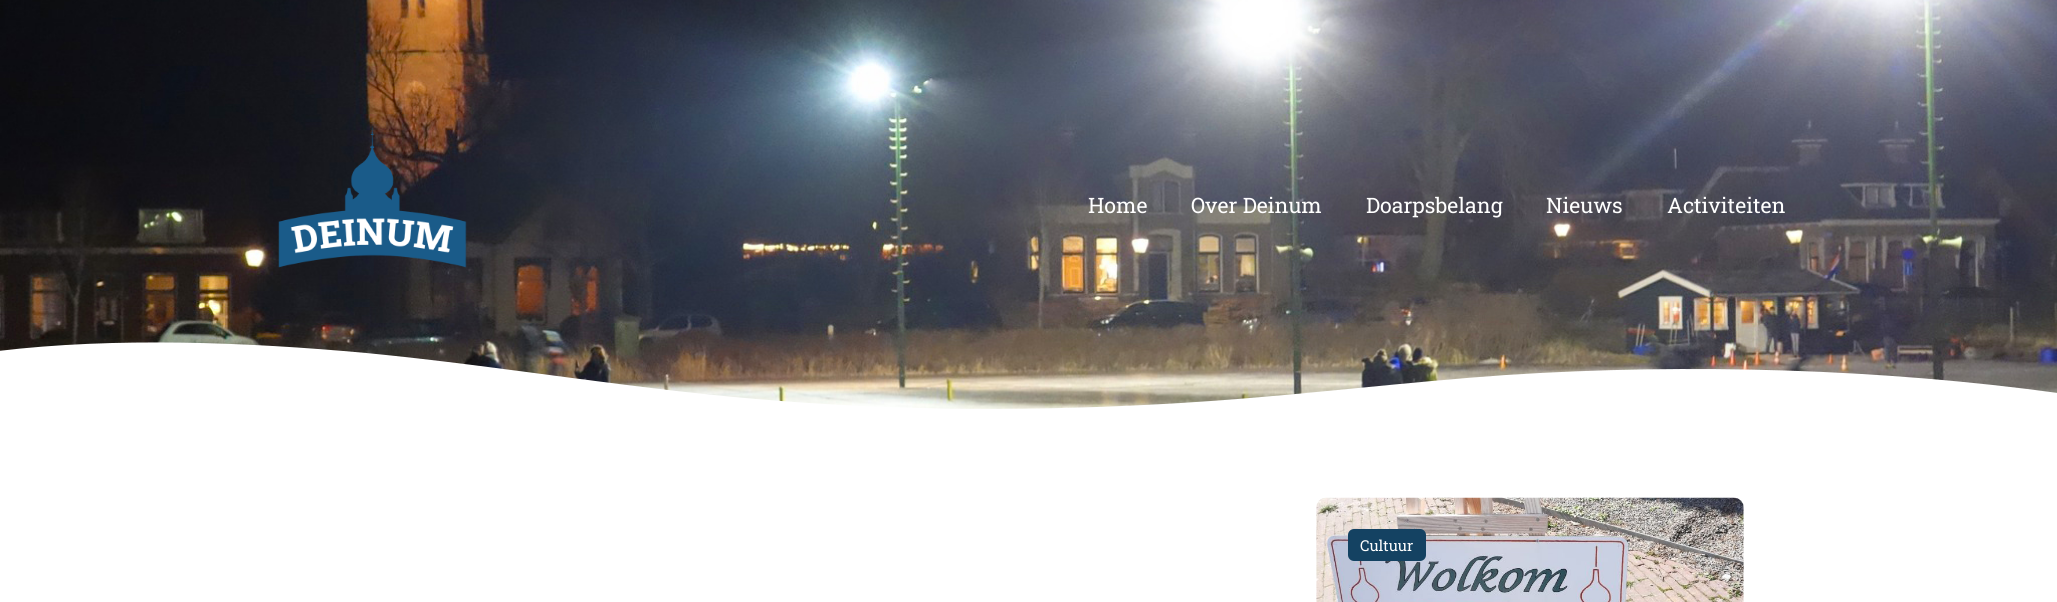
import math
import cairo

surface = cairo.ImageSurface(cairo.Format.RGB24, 2057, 602)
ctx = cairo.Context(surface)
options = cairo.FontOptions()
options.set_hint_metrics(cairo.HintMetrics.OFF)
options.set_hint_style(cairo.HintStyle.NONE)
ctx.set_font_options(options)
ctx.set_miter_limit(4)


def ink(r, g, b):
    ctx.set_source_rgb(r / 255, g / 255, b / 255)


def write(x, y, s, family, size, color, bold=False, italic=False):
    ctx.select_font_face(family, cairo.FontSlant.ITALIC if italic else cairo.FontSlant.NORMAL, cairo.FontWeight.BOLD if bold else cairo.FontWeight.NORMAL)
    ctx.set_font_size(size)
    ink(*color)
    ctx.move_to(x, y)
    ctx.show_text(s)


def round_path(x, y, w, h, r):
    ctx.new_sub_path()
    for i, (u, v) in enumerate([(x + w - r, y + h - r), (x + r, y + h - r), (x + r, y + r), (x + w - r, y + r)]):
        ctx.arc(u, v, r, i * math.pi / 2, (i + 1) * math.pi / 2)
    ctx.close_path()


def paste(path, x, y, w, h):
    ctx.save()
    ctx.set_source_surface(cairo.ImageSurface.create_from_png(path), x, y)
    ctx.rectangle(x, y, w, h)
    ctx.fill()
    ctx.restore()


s1 = dict(family="Roboto Slab", size=21.25, color=(255, 255, 255))
s2 = dict(family="Roboto Slab", size=15, color=(255, 255, 255))

ink(255, 255, 255)
ctx.paint()
paste("pic1.png", 0, 0, 2057, 409)
paste("pic2.png", 278, 125, 189, 143)
write(1088, 213, "Home", **s1)
write(1191, 213, "Over Deinum", **s1)
write(1366, 213, "Doarpsbelang", **s1)
write(1546, 213, "Nieuws", **s1)
write(1667, 213, "Activiteiten", **s1)
ctx.new_path()
ctx.move_to(1506, 375)
ctx.curve_to(1406, 382, 1310, 394, 1211, 401)
ctx.curve_to(1069, 411, 922, 412, 781, 401)
ctx.curve_to(644, 391, 502, 366, 366, 353)
ctx.curve_to(246, 342, 115, 337, -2, 351)
ctx.line_to(-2, 410)
ctx.line_to(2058, 410)
ctx.line_to(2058, 393)
ctx.curve_to(1882, 369, 1691, 363, 1506, 375)
ctx.close_path()
ctx.fill()
paste("pic3.png", 1316, 497, 428, 105)
ink(20, 66, 98)
round_path(1348, 529, 78, 32, 6)
ctx.fill()
write(1360, 551, "Cultuur", **s2)
surface.write_to_png("screenshot.png")
